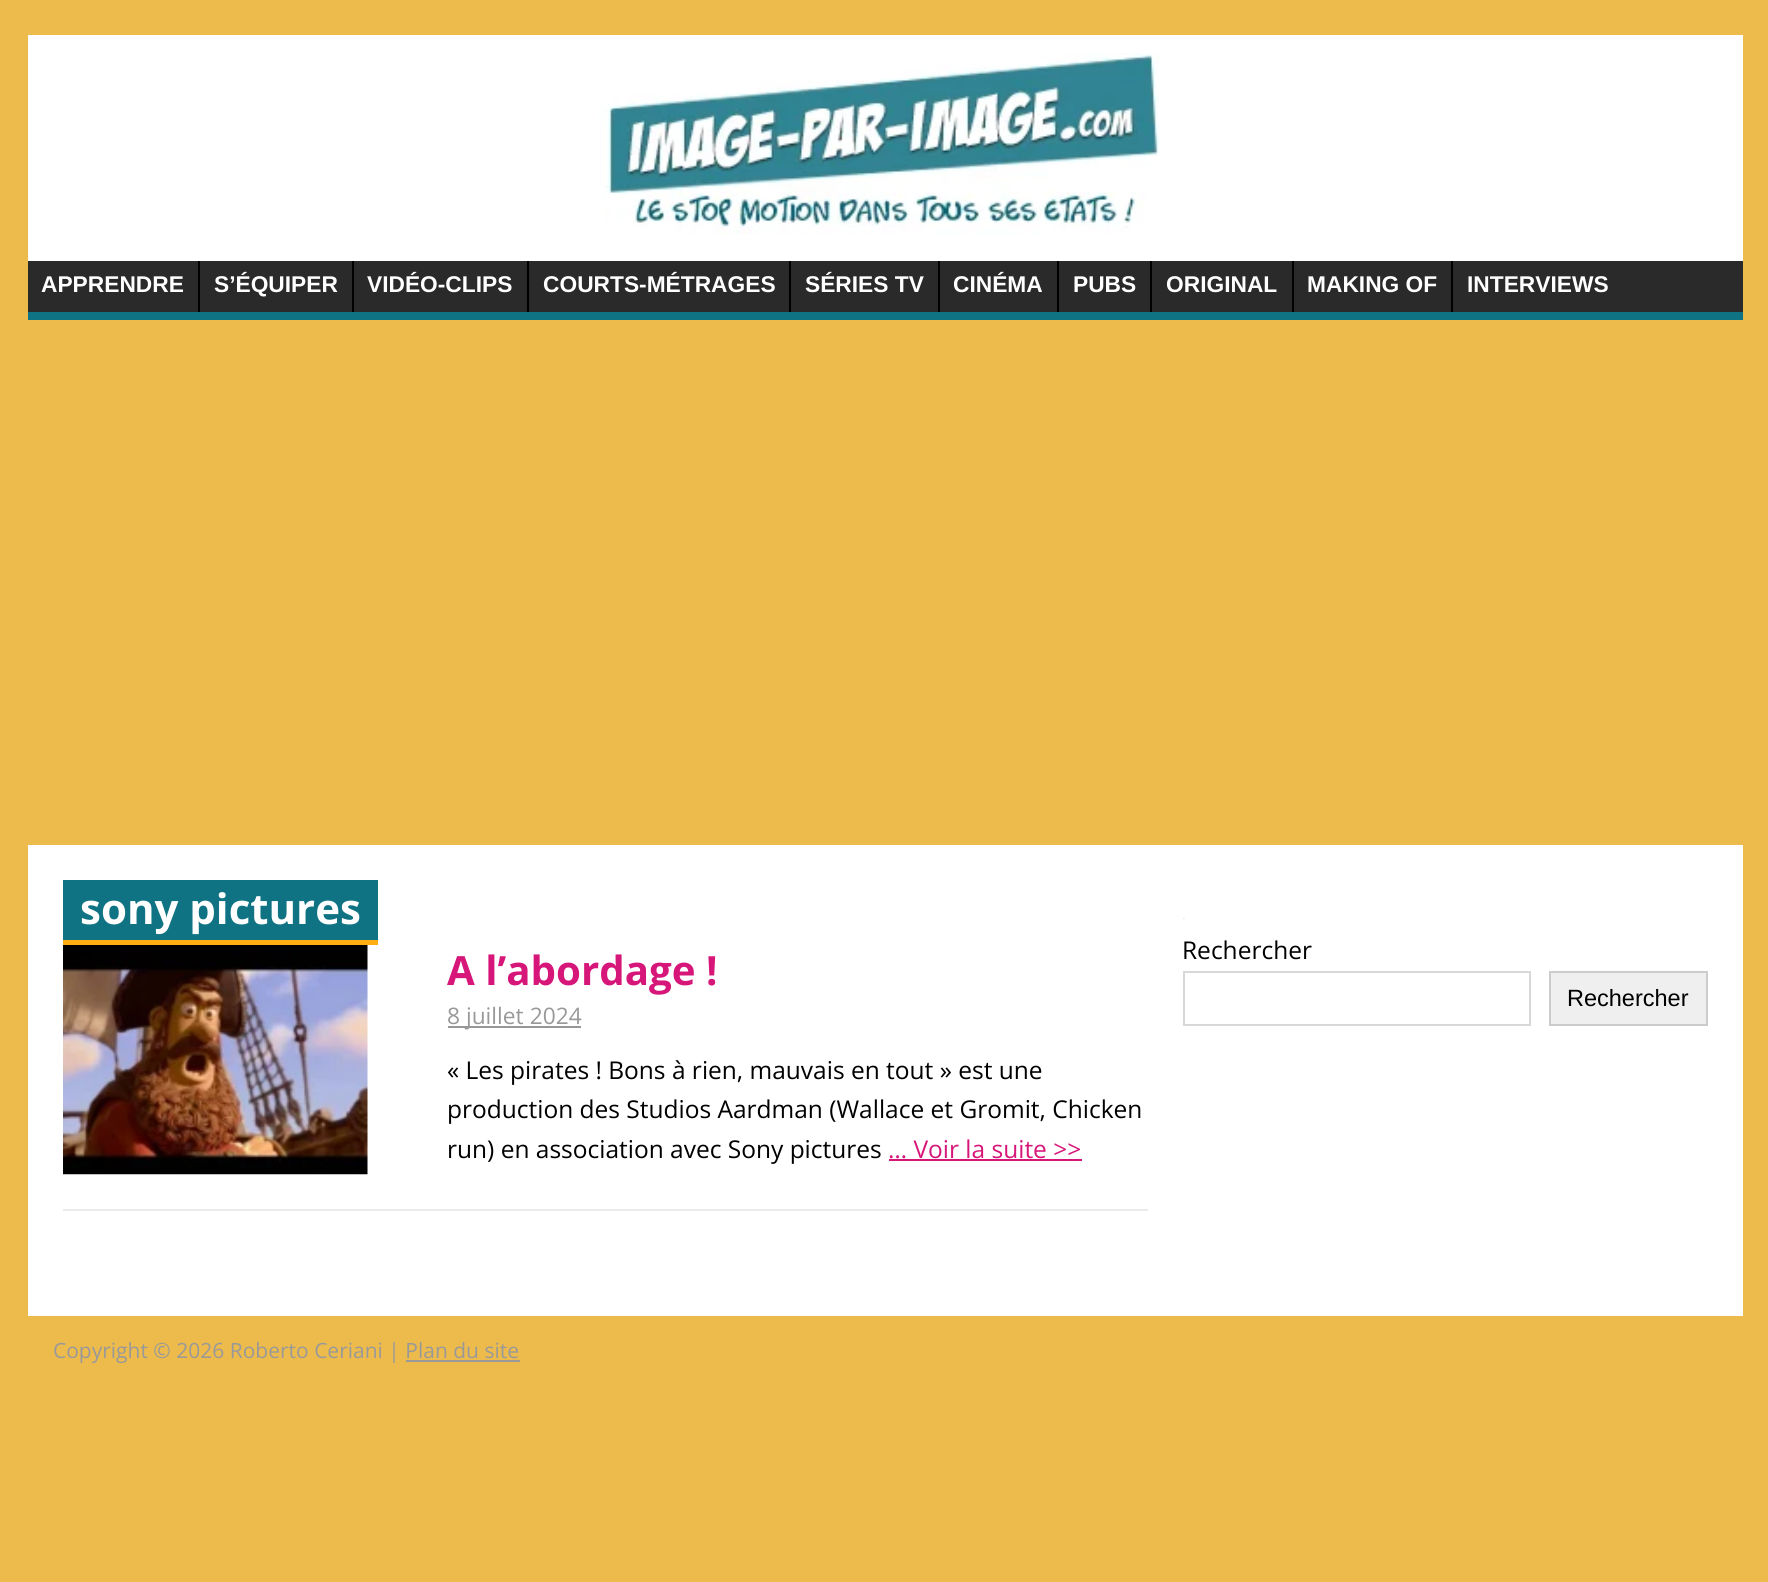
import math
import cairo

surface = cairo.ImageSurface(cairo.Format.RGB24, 1768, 1582)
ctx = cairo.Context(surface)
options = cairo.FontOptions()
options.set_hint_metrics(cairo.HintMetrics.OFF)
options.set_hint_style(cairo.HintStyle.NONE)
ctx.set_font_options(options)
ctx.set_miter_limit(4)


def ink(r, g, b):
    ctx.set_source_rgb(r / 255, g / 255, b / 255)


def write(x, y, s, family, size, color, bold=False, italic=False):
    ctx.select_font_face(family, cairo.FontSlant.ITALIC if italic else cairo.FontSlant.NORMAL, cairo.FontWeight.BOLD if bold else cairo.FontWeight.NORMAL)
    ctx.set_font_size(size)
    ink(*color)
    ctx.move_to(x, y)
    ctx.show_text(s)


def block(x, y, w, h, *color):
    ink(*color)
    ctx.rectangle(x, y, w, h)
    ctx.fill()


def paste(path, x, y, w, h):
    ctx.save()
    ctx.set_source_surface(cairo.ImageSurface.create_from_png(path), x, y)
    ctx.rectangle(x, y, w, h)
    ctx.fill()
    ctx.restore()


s1 = dict(family="Liberation Sans", size=22.75, color=(255, 255, 255), bold=True)
s2 = dict(family="Open Sans", size=42, color=(255, 255, 255), bold=True)
s3 = dict(family="Open Sans", size=40.25, color=(214, 22, 121), bold=True)
s4 = dict(family="Open Sans", size=22.75, color=(153, 153, 153))
s5 = dict(family="Open Sans", size=24.5, color=(0, 0, 0))
s6 = dict(family="Open Sans", size=24.5, color=(214, 22, 121))
s7 = dict(family="Liberation Sans", size=23.5, color=(0, 0, 0))
s8 = dict(family="Open Sans", size=21, color=(153, 153, 153))

ink(237, 187, 76)
ctx.paint()
block(28, 35, 1715, 226, 255, 255, 255)
paste("pic1.png", 599, 53, 561, 182)
block(28, 261, 1715, 51, 42, 42, 42)
block(28, 312, 1715, 8, 15, 115, 131)
write(41, 292, "APPRENDRE", **s1)
block(198, 261, 2, 51, 0, 0, 0)
write(214, 292, "S’ÉQUIPER", **s1)
block(352, 261, 2, 51, 0, 0, 0)
write(367, 292, "VIDÉO-CLIPS", **s1)
block(527, 261, 2, 51, 0, 0, 0)
write(543, 292, "COURTS-MÉTRAGES", **s1)
block(789, 261, 2, 51, 0, 0, 0)
write(805, 292, "SÉRIES TV", **s1)
block(938, 261, 2, 51, 0, 0, 0)
write(953, 292, "CINÉMA", **s1)
block(1057, 261, 2, 51, 0, 0, 0)
write(1073, 292, "PUBS", **s1)
block(1150, 261, 2, 51, 0, 0, 0)
write(1166, 292, "ORIGINAL", **s1)
block(1292, 261, 2, 51, 0, 0, 0)
write(1307, 292, "MAKING OF", **s1)
block(1451, 261, 2, 51, 0, 0, 0)
write(1467, 292, "INTERVIEWS", **s1)
block(28, 845, 1715, 471, 255, 255, 255)
block(63, 880, 315, 60, 15, 115, 131)
block(63, 940, 315, 5, 255, 174, 19)
write(80, 924, "sony pictures", **s2)
block(63, 1209, 1085, 2, 235, 235, 235)
paste("pic2.png", 63, 945, 305, 230)
write(447, 985, "A l’abordage !", **s3)
block(448, 1026, 133, 2, 151, 151, 151)
write(447, 1024, "8 juillet 2024", **s4)
write(447, 1079, "« Les pirates ! Bons à rien, mauvais en tout » est une", **s5)
write(447, 1118, "production des Studios Aardman (Wallace et Gromit, Chicken", **s5)
write(447, 1158, "run) en association avec Sony pictures", **s5)
write(888, 1158, "… Voir la suite >>", **s6)
block(889, 1159, 193, 2, 214, 22, 121)
paste("pic3.png", 1183, 918, 2, 1)
write(1182, 959, "Rechercher", **s5)
ctx.rectangle(1184, 972, 346, 53)
ink(215, 216, 216)
ctx.stroke()
ink(239, 239, 239)
ctx.rectangle(1550, 972, 157, 53)
ctx.fill_preserve()
ink(204, 204, 204)
ctx.stroke()
write(1567, 1006, "Rechercher", **s7)
write(53, 1358, "Copyright © 2026 Roberto Ceriani | Plan du site", **s8)
block(406, 1360, 114, 2, 153, 153, 153)
surface.write_to_png("screenshot.png")
